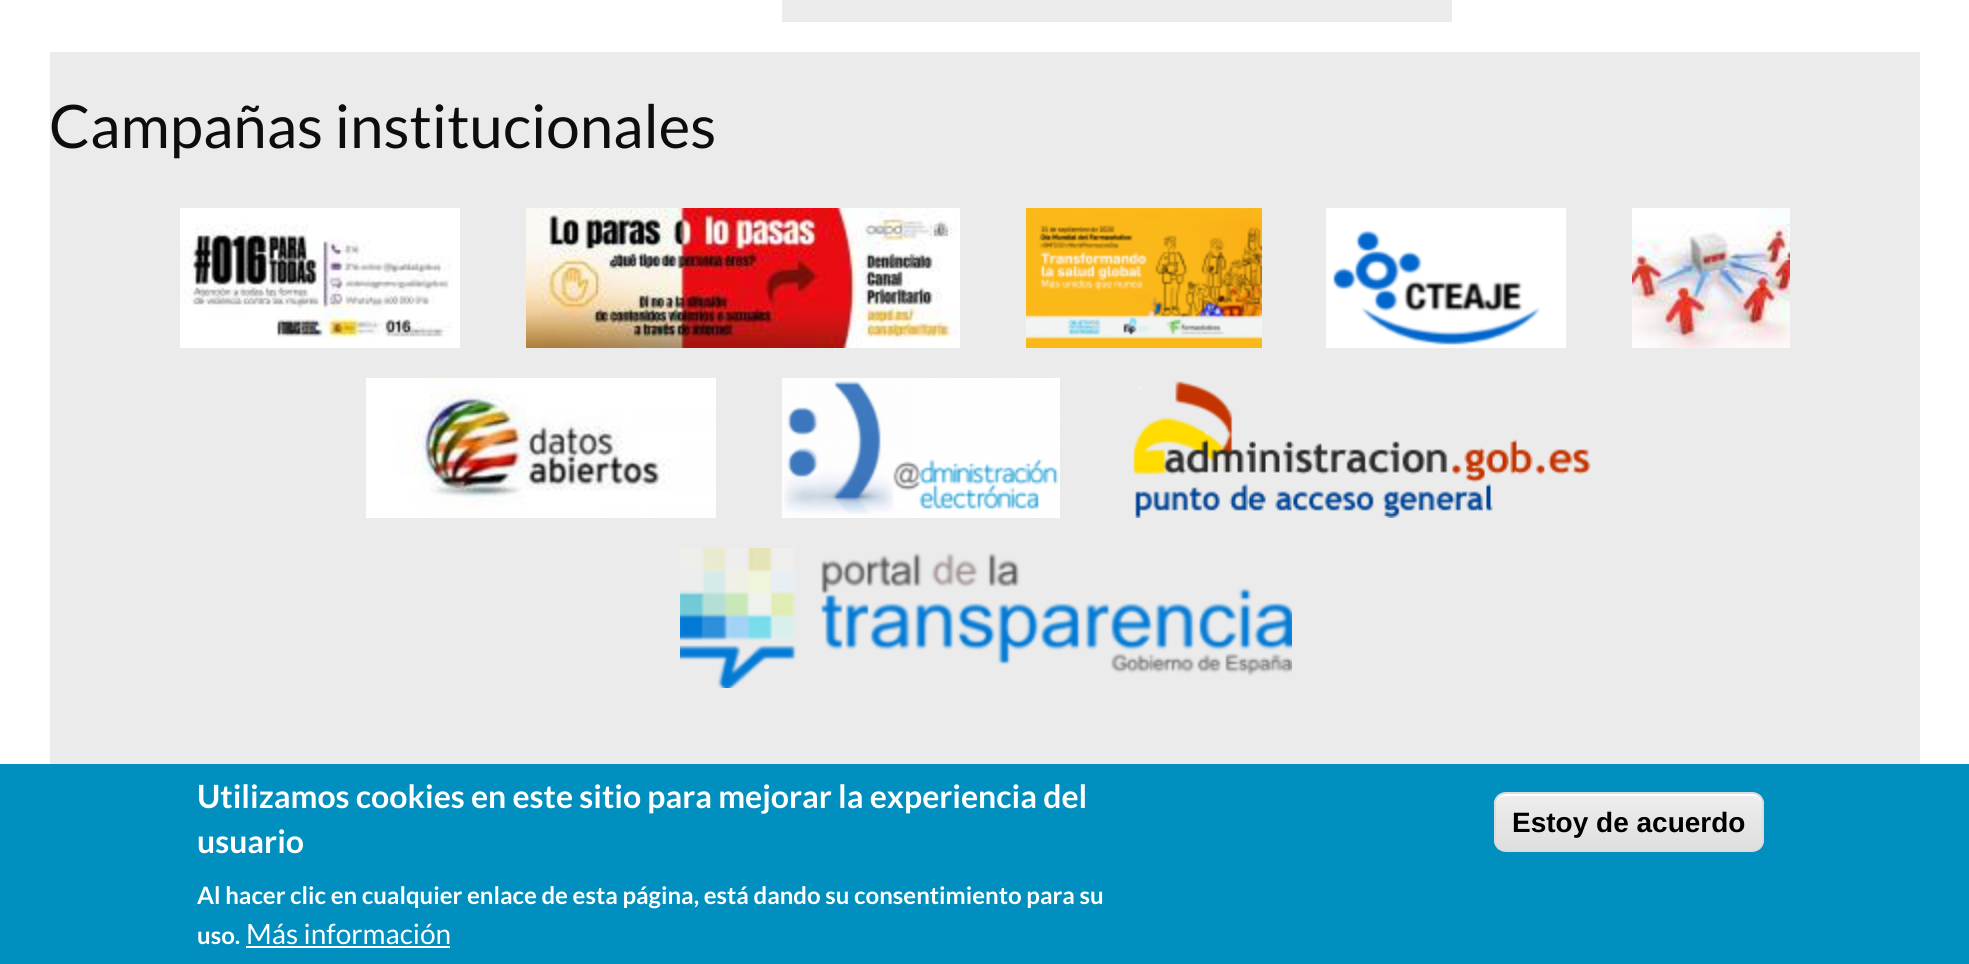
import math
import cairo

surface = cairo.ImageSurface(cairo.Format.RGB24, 1969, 964)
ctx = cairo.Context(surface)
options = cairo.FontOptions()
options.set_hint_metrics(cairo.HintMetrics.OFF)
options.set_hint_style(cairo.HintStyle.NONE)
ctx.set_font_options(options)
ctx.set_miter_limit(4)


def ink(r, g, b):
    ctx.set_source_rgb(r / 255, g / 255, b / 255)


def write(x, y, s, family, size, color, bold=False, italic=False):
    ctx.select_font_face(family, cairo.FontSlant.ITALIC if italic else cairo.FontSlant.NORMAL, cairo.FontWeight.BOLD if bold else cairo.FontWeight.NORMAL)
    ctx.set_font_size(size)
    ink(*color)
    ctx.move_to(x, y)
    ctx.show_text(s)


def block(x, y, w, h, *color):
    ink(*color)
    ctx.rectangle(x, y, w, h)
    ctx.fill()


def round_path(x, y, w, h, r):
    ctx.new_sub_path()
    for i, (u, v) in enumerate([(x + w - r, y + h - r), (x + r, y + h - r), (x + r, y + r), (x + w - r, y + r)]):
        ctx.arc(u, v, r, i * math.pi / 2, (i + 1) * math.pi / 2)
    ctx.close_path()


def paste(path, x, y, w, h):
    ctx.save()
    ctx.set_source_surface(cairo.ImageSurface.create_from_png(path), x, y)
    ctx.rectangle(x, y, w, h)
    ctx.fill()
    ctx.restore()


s1 = dict(family="Lato", size=60, color=(14, 12, 13))
s2 = dict(family="Lato", size=32, color=(255, 255, 255), bold=True)
s3 = dict(family="Lato", size=24, color=(255, 255, 255), bold=True)
s4 = dict(family="Lato", size=28, color=(255, 255, 255))
s5 = dict(family="Liberation Sans", size=28, color=(0, 0, 0), bold=True)

ink(255, 255, 255)
ctx.paint()
block(782, 0, 670, 22, 235, 235, 235)
block(50, 52, 1870, 712, 235, 235, 235)
write(49, 148, "Campañas institucionales", **s1)
paste("pic1.png", 180, 208, 280, 140)
paste("pic2.png", 526, 208, 434, 140)
paste("pic3.png", 1026, 208, 236, 140)
paste("pic4.png", 1326, 208, 240, 140)
paste("pic5.png", 1632, 208, 158, 140)
paste("pic6.png", 366, 378, 350, 140)
paste("pic7.png", 782, 378, 278, 140)
paste("pic8.png", 1133, 381, 458, 137)
paste("pic9.png", 680, 548, 612, 140)
block(0, 764, 1969, 200, 0, 143, 190)
write(197, 808, "Utilizamos cookies en este sitio para mejorar la experiencia del", **s2)
write(197, 853, "usuario", **s2)
write(197, 904, "Al hacer clic en cualquier enlace de esta página, está dando su consentimiento para su", **s3)
write(197, 944, "uso.", **s3)
write(246, 944, "Más información", **s4)
block(246, 946, 204, 2, 255, 255, 255)
ctx.save()
round_path(1494, 792, 270, 60, 12)
ctx.clip()
gradient = cairo.LinearGradient(1629, 794, 1629, 850)
gradient.add_color_stop_rgba(0.05, 0.929, 0.929, 0.929, 1)
gradient.add_color_stop_rgba(1, 0.875, 0.875, 0.875, 1)
ctx.set_source(gradient)
ctx.rectangle(1494, 794, 270, 56)
ctx.fill()
ctx.restore()
ctx.new_path()
ctx.move_to(1506, 796)
ctx.line_to(1752, 796)
ctx.curve_to(1758, 796, 1762, 800, 1762, 806)
ctx.line_to(1762, 804)
ctx.curve_to(1762, 798, 1758, 794, 1752, 794)
ctx.line_to(1506, 794)
ctx.curve_to(1500, 794, 1496, 798, 1496, 804)
ctx.line_to(1496, 806)
ctx.curve_to(1496, 800, 1500, 796, 1506, 796)
ctx.close_path()
ctx.fill()
round_path(1495, 793, 268, 58, 11)
ink(220, 220, 220)
ctx.stroke()
write(1512, 832, "Estoy de acuerdo", **s5)
surface.write_to_png("screenshot.png")
